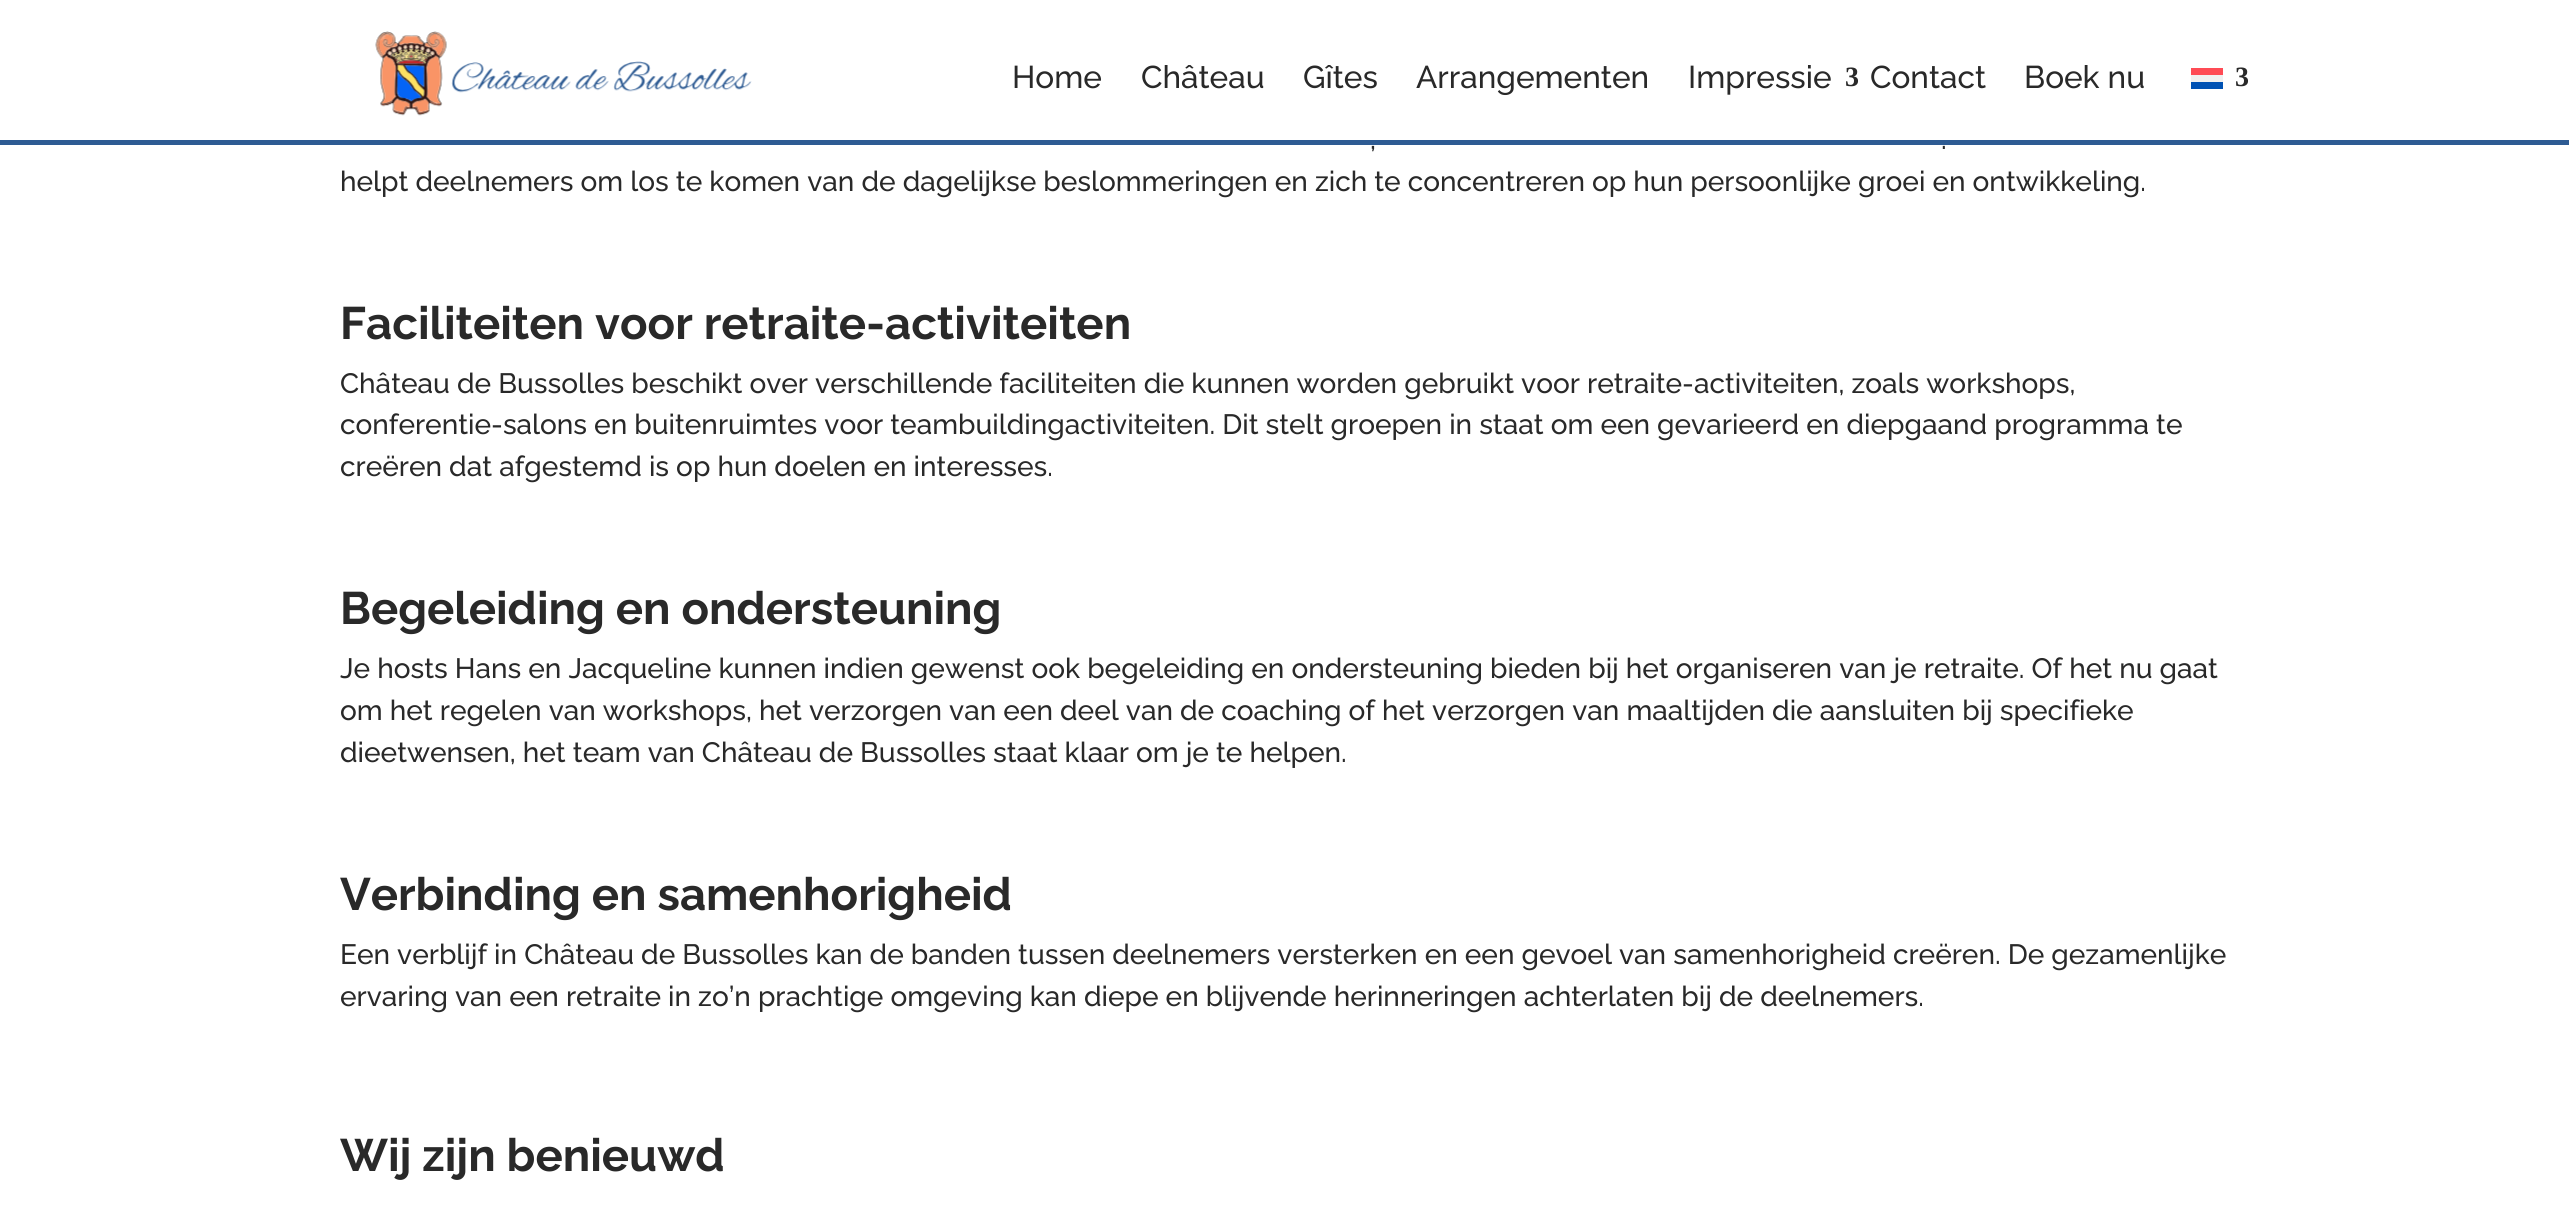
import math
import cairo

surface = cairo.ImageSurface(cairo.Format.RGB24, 2569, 1215)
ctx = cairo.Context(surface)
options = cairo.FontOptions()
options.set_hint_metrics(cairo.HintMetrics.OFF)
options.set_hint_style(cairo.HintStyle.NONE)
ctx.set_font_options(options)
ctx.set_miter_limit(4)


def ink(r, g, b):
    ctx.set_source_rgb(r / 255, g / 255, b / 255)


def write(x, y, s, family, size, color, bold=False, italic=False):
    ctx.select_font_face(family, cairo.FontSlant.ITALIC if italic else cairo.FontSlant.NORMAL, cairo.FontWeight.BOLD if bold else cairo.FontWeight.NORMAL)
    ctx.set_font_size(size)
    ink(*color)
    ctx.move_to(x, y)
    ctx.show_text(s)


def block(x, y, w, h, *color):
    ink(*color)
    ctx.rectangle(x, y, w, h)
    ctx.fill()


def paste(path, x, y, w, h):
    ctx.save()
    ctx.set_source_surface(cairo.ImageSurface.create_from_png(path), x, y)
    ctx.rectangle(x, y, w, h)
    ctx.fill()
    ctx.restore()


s1 = dict(family="Raleway Medium", size=31.5, color=(41, 41, 41))
s2 = dict(family="Liberation Serif", size=28, color=(41, 41, 41), bold=True)
s3 = dict(family="Raleway Medium", size=28, color=(41, 41, 41))
s4 = dict(family="Raleway", size=45.5, color=(41, 41, 41), bold=True)

ink(255, 255, 255)
ctx.paint()
block(0, 140, 2569, 5, 46, 91, 147)
paste("pic1.png", 375, 31, 377, 85)
write(1012, 88, "Home", **s1)
write(1141, 88, "Château", **s1)
write(1303, 88, "Gîtes", **s1)
write(1416, 88, "Arrangementen", **s1)
write(1688, 88, "Impressie", **s1)
write(1845, 86, "3", **s2)
write(1870, 88, "Contact", **s1)
write(2024, 88, "Boek nu", **s1)
block(2191, 75, 32, 7, 240, 240, 240)
block(2191, 82, 32, 7, 0, 82, 180)
block(2191, 68, 32, 7, 255, 75, 85)
write(2235, 86, "3", **s2)
write(1370, 149, ",", **s3)
write(1941, 149, ".", **s3)
write(340, 191, "helpt deelnemers om los te komen van de dagelijkse beslommeringen en zich te concentreren op hun persoonlijke groei en ontwikkeling.", **s3)
write(340, 339, "Faciliteiten voor retraite-activiteiten", **s4)
write(340, 393, "Château de Bussolles beschikt over verschillende faciliteiten die kunnen worden gebruikt voor retraite-activiteiten, zoals workshops,", **s3)
write(340, 434, "conferentie-salons en buitenruimtes voor teambuildingactiviteiten. Dit stelt groepen in staat om een gevarieerd en diepgaand programma te", **s3)
write(340, 476, "creëren dat afgestemd is op hun doelen en interesses.", **s3)
write(340, 624, "Begeleiding en ondersteuning", **s4)
write(340, 678, "Je hosts Hans en Jacqueline kunnen indien gewenst ook begeleiding en ondersteuning bieden bij het organiseren van je retraite. Of het nu gaat", **s3)
write(340, 720, "om het regelen van workshops, het verzorgen van een deel van de coaching of het verzorgen van maaltijden die aansluiten bij specifieke", **s3)
write(340, 762, "dieetwensen, het team van Château de Bussolles staat klaar om je te helpen.", **s3)
write(340, 910, "Verbinding en samenhorigheid", **s4)
write(340, 964, "Een verblijf in Château de Bussolles kan de banden tussen deelnemers versterken en een gevoel van samenhorigheid creëren. De gezamenlijke", **s3)
write(340, 1006, "ervaring van een retraite in zo’n prachtige omgeving kan diepe en blijvende herinneringen achterlaten bij de deelnemers.", **s3)
write(340, 1171, "Wij zijn benieuwd", **s4)
surface.write_to_png("screenshot.png")
